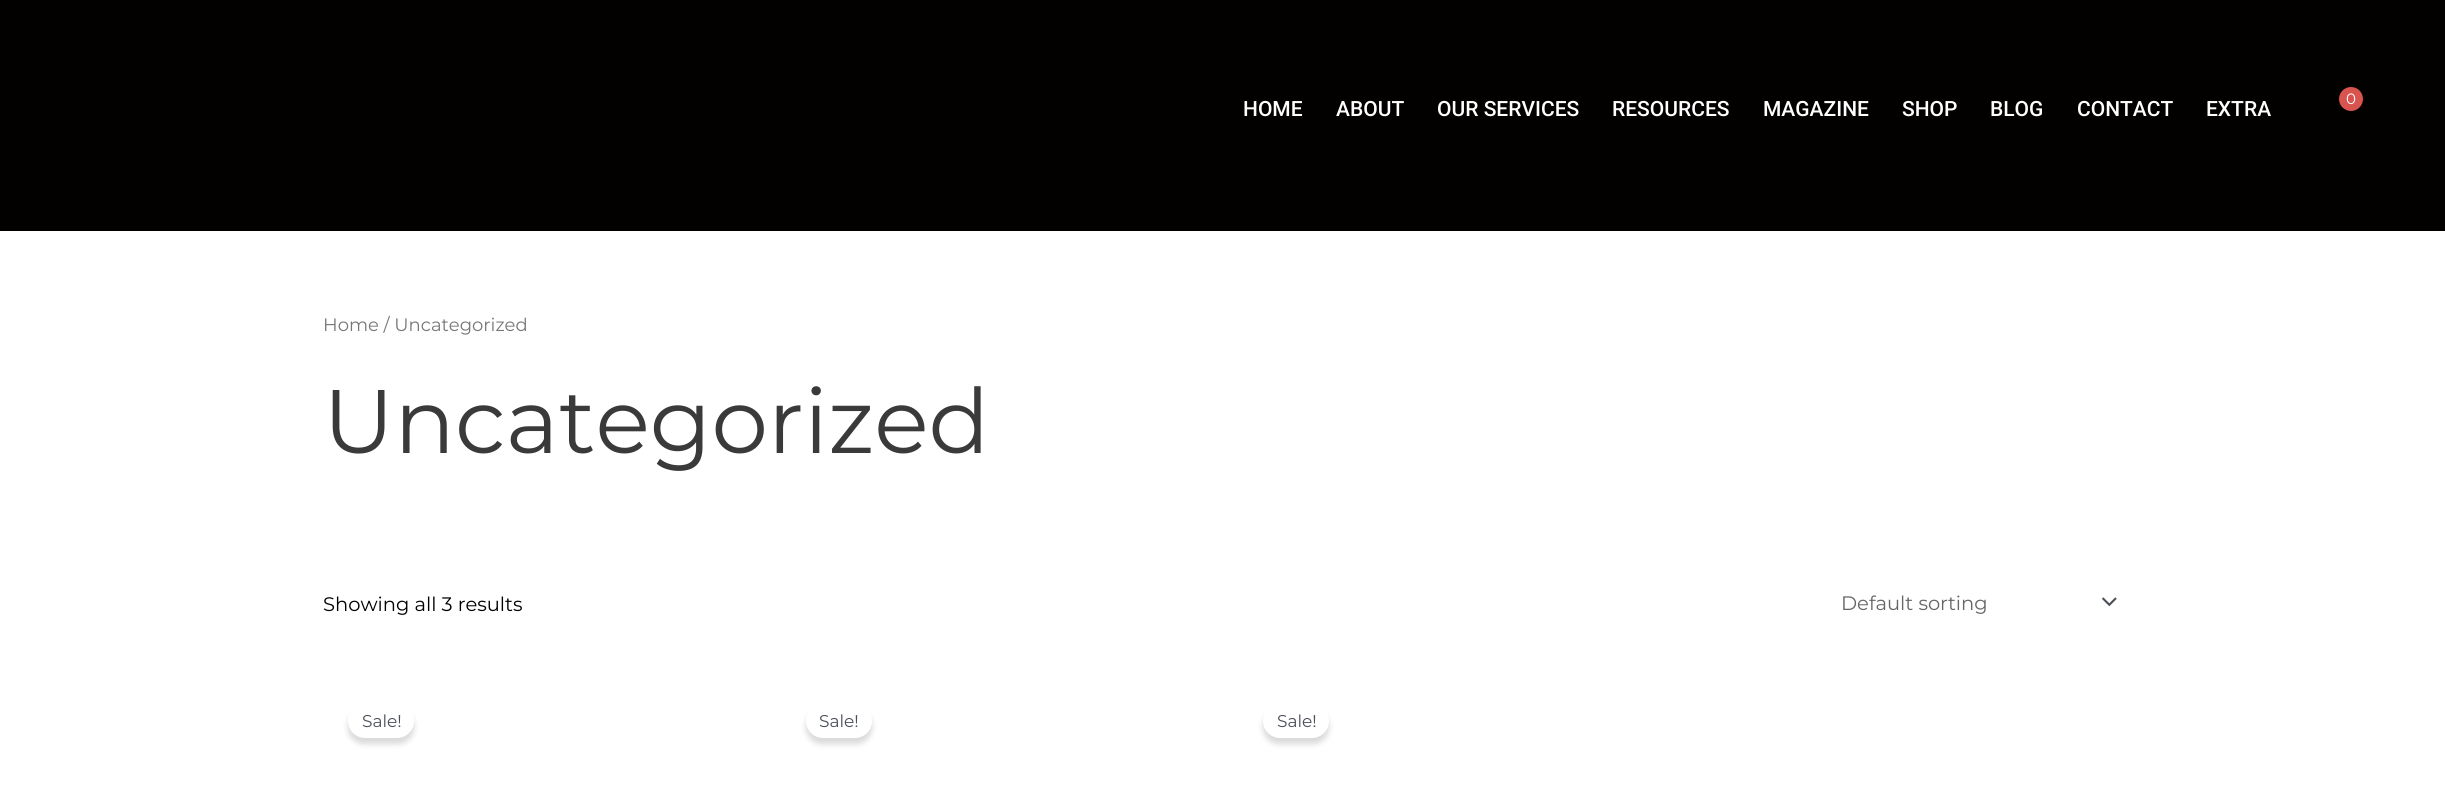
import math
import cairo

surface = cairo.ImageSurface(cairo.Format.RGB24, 2445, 789)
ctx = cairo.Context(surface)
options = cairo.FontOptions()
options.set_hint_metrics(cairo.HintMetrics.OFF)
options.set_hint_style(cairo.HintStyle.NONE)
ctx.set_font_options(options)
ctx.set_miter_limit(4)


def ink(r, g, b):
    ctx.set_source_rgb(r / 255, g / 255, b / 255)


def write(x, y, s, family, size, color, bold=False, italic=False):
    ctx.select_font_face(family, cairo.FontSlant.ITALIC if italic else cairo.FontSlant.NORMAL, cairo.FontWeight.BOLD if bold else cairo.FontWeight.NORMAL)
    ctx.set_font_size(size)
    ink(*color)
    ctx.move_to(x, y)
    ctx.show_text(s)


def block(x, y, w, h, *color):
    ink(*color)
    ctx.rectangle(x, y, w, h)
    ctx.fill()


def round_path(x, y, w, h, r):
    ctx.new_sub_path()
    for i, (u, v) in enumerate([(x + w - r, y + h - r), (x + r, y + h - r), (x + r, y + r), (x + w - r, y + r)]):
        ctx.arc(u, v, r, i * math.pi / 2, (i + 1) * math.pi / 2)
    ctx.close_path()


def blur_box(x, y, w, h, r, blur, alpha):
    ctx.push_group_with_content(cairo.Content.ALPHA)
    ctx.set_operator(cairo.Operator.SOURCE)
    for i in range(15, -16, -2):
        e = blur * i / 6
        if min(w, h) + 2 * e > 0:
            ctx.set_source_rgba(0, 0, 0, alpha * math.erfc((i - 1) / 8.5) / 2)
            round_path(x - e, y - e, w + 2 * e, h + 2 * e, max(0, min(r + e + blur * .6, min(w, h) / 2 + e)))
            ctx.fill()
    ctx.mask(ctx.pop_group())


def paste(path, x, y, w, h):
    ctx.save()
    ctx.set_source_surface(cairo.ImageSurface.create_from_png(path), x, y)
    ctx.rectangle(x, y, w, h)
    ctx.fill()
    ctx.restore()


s1 = dict(family="Roboto Medium", size=21, color=(255, 255, 255))
s2 = dict(family="Montserrat", size=15, color=(255, 255, 255))
s3 = dict(family="Montserrat", size=18, color=(119, 119, 119))
s4 = dict(family="Montserrat", size=90, color=(58, 58, 58))
s5 = dict(family="Montserrat", size=19.5, color=(0, 0, 0))
s6 = dict(family="Montserrat", size=19.5, color=(102, 102, 102))
s7 = dict(family="Montserrat", size=17, color=(75, 79, 88))

ink(255, 255, 255)
ctx.paint()
block(0, 0, 2445, 231, 3, 0, 0)
write(1243, 116, "HOME", **s1)
write(1336, 116, "ABOUT", **s1)
write(1437, 116, "OUR SERVICES", **s1)
write(1612, 116, "RESOURCES", **s1)
write(1763, 116, "MAGAZINE", **s1)
write(1902, 116, "SHOP", **s1)
write(1990, 116, "BLOG", **s1)
write(2077, 116, "CONTACT", **s1)
write(2206, 116, "EXTRA", **s1)
ink(217, 83, 79)
ctx.new_path()
ctx.arc(2351, 99, 12, 0, 2 * math.pi)
ctx.fill()
write(2346, 104, "0", **s2)
write(323, 331, "Home / Uncategorized", **s3)
write(323, 453, "Uncategorized", **s4)
write(323, 611, "Showing all 3 results", **s5)
paste("pic1.png", 2102, 597, 15, 10)
write(1841, 610, "Default sorting", **s6)
ink(0, 0, 0)
blur_box(348, 710, 66, 34, 17, 3, 0.15)
ink(255, 255, 255)
round_path(348, 704, 66, 34, 17)
ctx.fill()
write(362, 727, "Sale!", **s7)
ink(0, 0, 0)
blur_box(806, 710, 66, 34, 17, 3, 0.15)
ink(255, 255, 255)
round_path(806, 704, 66, 34, 17)
ctx.fill()
write(819, 727, "Sale!", **s7)
ink(0, 0, 0)
blur_box(1263, 710, 66, 34, 17, 3, 0.15)
ink(255, 255, 255)
round_path(1263, 704, 66, 34, 17)
ctx.fill()
write(1277, 727, "Sale!", **s7)
surface.write_to_png("screenshot.png")
